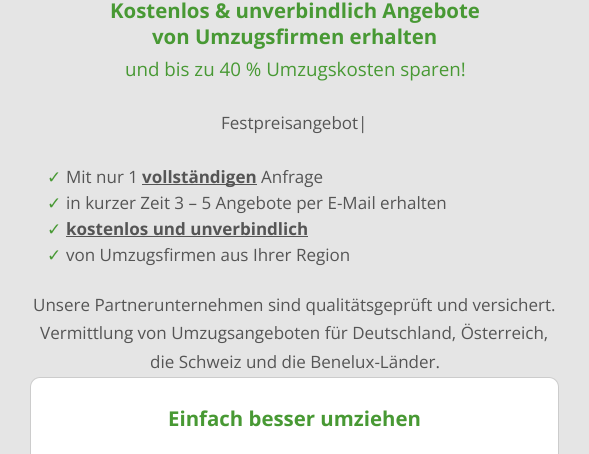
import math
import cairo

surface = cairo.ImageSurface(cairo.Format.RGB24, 589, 454)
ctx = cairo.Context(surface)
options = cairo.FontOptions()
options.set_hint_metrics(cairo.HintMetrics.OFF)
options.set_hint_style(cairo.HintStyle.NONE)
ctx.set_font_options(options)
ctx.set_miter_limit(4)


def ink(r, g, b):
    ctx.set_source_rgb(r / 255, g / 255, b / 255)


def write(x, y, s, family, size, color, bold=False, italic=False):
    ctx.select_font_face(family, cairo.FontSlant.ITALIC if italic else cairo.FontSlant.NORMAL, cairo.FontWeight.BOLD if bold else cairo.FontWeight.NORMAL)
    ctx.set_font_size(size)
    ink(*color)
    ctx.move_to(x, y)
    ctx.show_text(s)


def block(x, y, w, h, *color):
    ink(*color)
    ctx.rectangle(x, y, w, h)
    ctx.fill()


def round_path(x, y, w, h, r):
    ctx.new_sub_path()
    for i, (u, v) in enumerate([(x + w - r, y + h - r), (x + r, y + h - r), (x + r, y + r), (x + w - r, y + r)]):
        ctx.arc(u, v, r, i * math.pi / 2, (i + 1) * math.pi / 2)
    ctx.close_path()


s1 = dict(family="Open Sans", size=20.4, color=(72, 153, 52), bold=True)
s2 = dict(family="Open Sans", size=18.75, color=(72, 153, 52))
s3 = dict(family="Open Sans", size=17, color=(85, 85, 85))
s4 = dict(family="DejaVu Sans", size=17, color=(72, 153, 52))
s5 = dict(family="Open Sans", size=17, color=(85, 85, 85), bold=True)

ink(229, 229, 229)
ctx.paint()
write(110, 18, "Kostenlos & unverbindlich Angebote", **s1)
write(152, 44, "von Umzugsfirmen erhalten", **s1)
write(125, 76, "und bis zu 40 % Umzugskosten sparen!", **s2)
write(221, 129, "Festpreisangebot|", **s3)
write(47, 183, "✓", **s4)
write(66, 183, "Mit nur 1", **s3)
block(142, 184, 115, 1, 85, 85, 85)
write(142, 183, "vollständigen", **s5)
write(261, 183, "Anfrage", **s3)
write(47, 209, "✓", **s4)
write(66, 209, "in kurzer Zeit 3 – 5 Angebote per E-Mail erhalten", **s3)
write(47, 235, "✓", **s4)
write(66, 235, "kostenlos und unverbindlich", **s5)
block(66, 236, 242, 1, 85, 85, 85)
write(47, 261, "✓", **s4)
write(66, 261, "von Umzugsfirmen aus Ihrer Region", **s3)
write(33, 311, "Unsere Partnerunternehmen sind qualitätsgeprüft und versichert.", **s3)
write(40, 339, "Vermittlung von Umzugsangeboten für Deutschland, Österreich,", **s3)
write(150, 368, "die Schweiz und die Benelux-Länder.", **s3)
ink(255, 255, 255)
round_path(30.5, 377.5, 528, 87, 9.5)
ctx.fill_preserve()
ink(204, 204, 204)
ctx.set_line_width(1)
ctx.stroke()
write(168, 426, "Einfach besser umziehen", **s1)
surface.write_to_png("screenshot.png")
